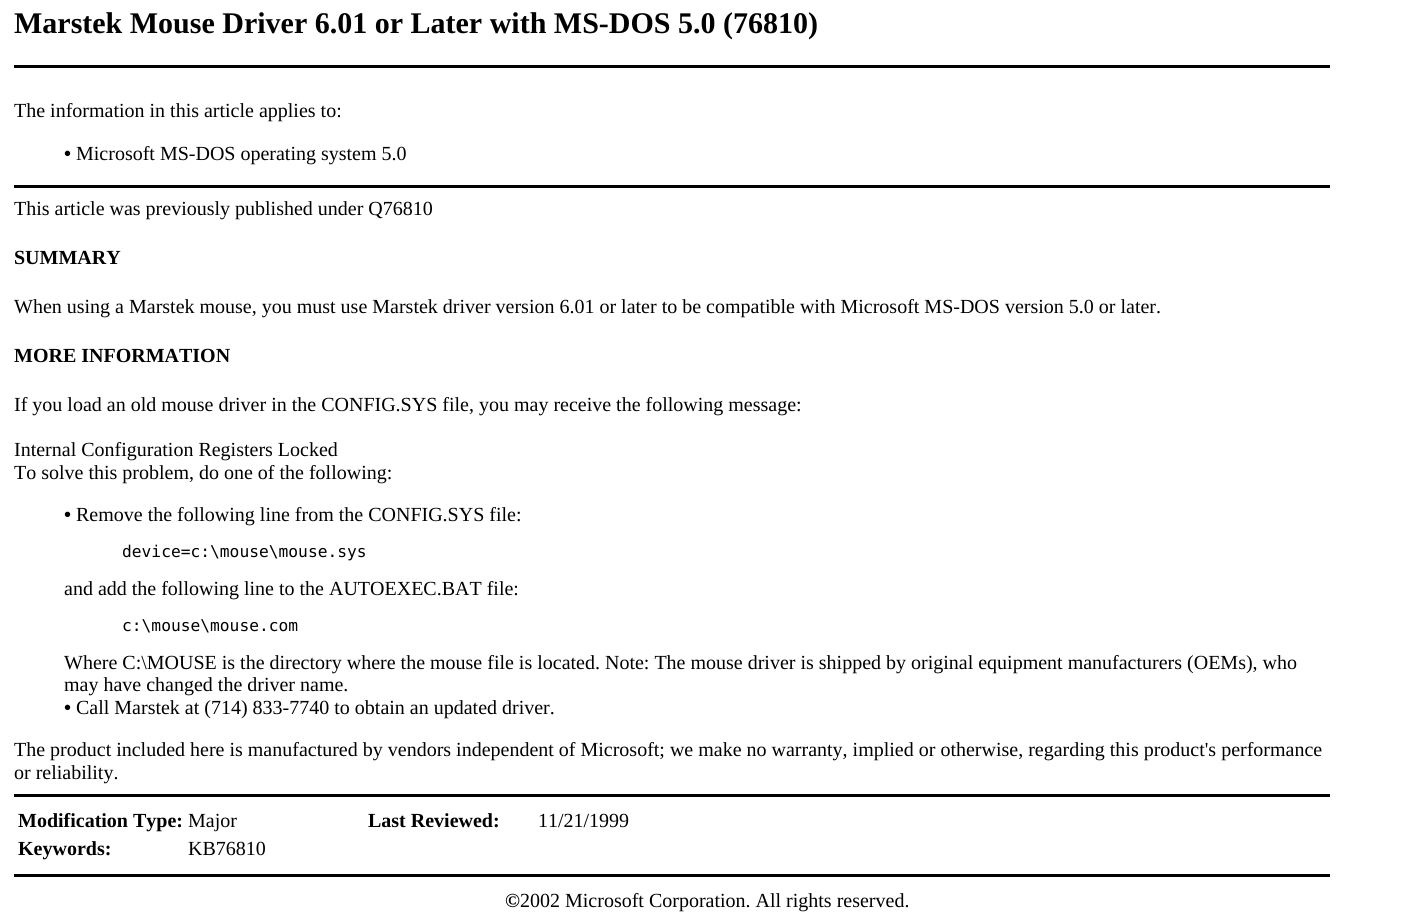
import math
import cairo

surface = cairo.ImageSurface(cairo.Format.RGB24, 1413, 922)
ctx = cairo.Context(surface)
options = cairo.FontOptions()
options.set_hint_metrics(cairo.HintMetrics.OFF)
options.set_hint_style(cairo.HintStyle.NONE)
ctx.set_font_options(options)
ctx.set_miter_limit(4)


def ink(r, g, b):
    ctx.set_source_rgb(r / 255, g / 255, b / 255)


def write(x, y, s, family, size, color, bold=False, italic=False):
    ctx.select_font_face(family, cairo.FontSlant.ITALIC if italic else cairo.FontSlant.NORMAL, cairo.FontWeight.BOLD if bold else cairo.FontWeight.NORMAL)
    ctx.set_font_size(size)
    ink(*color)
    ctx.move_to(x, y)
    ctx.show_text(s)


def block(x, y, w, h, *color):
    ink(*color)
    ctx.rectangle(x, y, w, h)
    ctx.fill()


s1 = dict(family="Liberation Serif", size=30, color=(0, 0, 0), bold=True)
s2 = dict(family="Liberation Serif", size=20, color=(0, 0, 0))
s3 = dict(family="Liberation Serif", size=20, color=(0, 0, 0), bold=True)
s4 = dict(family="DejaVu Sans Mono", size=16.25, color=(0, 0, 0))

ink(255, 255, 255)
ctx.paint()
write(14, 33, "Marstek Mouse Driver 6.01 or Later with MS-DOS 5.0 (76810)", **s1)
block(14, 65, 1316, 3, 0, 0, 0)
write(14, 117, "The information in this article applies to:", **s2)
write(64, 160, "•", **s3)
write(76, 160, "Microsoft MS-DOS operating system 5.0", **s2)
block(14, 185, 1316, 3, 0, 0, 0)
write(14, 215, "This article was previously published under Q76810", **s2)
write(14, 264, "SUMMARY", **s3)
write(14, 313, "When using a Marstek mouse, you must use Marstek driver version 6.01 or later to be compatible with Microsoft MS-DOS version 5.0 or later.", **s2)
write(14, 362, "MORE INFORMATION", **s3)
write(14, 411, "If you load an old mouse driver in the CONFIG.SYS file, you may receive the following message:", **s2)
write(14, 456, "Internal Configuration Registers Locked", **s2)
write(14, 479, "To solve this problem, do one of the following:", **s2)
write(64, 521, "•", **s3)
write(76, 521, "Remove the following line from the CONFIG.SYS file:", **s2)
write(122, 557, "device=c:\\mouse\\mouse.sys", **s4)
write(64, 595, "and add the following line to the AUTOEXEC.BAT file:", **s2)
write(122, 631, "c:\\mouse\\mouse.com", **s4)
write(64, 669, "Where C:\\MOUSE is the directory where the mouse file is located. Note: The mouse driver is shipped by original equipment manufacturers (OEMs), who", **s2)
write(64, 691, "may have changed the driver name.", **s2)
write(64, 714, "•", **s3)
write(76, 714, "Call Marstek at (714) 833-7740 to obtain an updated driver.", **s2)
write(14, 756, "The product included here is manufactured by vendors independent of Microsoft; we make no warranty, implied or otherwise, regarding this product's performance", **s2)
write(14, 779, "or reliability.", **s2)
block(14, 794, 1316, 3, 0, 0, 0)
write(18, 827, "Modification Type:", **s3)
write(188, 827, "Major", **s2)
write(368, 827, "Last Reviewed:", **s3)
write(538, 827, "11/21/1999", **s2)
write(18, 855, "Keywords:", **s3)
write(188, 855, "KB76810", **s2)
block(14, 874, 1316, 3, 0, 0, 0)
write(505, 907, "©", **s3)
write(520, 907, "2002 Microsoft Corporation. All rights reserved.", **s2)
surface.write_to_png("screenshot.png")
